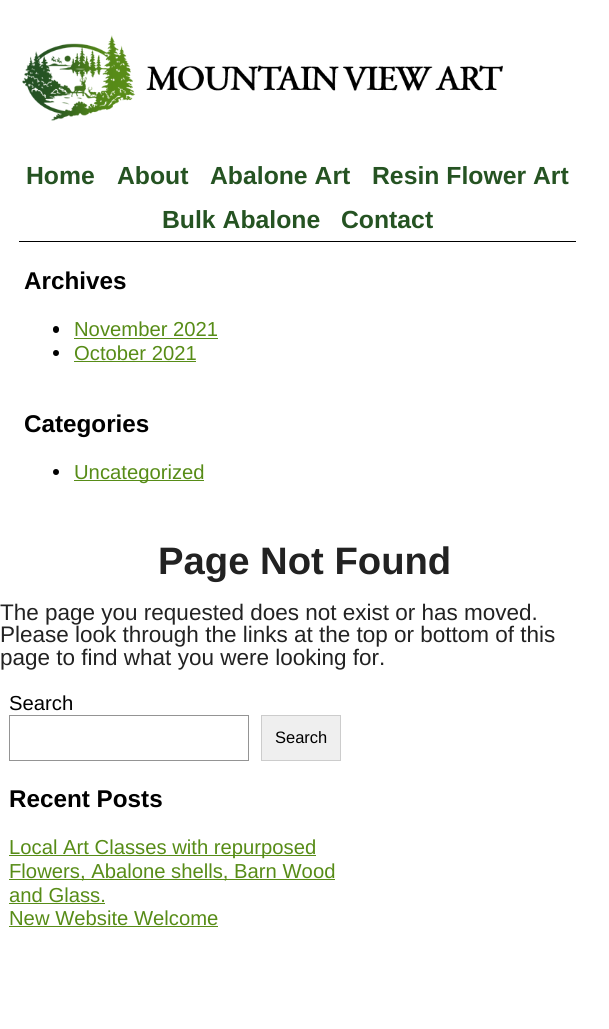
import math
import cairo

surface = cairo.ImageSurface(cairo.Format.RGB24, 609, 1029)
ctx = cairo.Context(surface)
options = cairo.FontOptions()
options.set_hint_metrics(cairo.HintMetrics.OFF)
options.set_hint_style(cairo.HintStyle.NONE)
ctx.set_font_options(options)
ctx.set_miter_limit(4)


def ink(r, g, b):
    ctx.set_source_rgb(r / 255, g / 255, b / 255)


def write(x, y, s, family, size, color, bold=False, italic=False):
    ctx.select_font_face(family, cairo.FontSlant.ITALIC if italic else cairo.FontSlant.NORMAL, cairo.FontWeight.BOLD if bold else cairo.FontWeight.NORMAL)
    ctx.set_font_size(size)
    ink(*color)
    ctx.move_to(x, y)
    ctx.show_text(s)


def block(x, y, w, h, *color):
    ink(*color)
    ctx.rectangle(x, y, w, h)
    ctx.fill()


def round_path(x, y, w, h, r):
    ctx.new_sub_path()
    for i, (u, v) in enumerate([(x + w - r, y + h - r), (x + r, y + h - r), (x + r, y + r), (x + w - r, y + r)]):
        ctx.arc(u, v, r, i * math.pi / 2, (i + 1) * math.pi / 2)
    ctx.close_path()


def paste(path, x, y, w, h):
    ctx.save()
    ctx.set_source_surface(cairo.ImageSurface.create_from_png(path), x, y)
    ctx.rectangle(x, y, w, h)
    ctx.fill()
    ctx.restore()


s1 = dict(family="Liberation Sans", size=24.75, color=(37, 83, 34), bold=True)
s2 = dict(family="Liberation Sans", size=24.25, color=(0, 0, 0), bold=True)
s3 = dict(family="Liberation Sans", size=20.25, color=(87, 140, 23))
s4 = dict(family="Liberation Sans", size=38.25, color=(34, 34, 34), bold=True)
s5 = dict(family="Liberation Sans", size=22.5, color=(34, 34, 34))
s6 = dict(family="Liberation Sans", size=20.25, color=(0, 0, 0))
s7 = dict(family="Liberation Sans", size=16.5, color=(0, 0, 0))

ink(255, 255, 255)
ctx.paint()
paste("pic1.png", 22, 35, 481, 86)
block(19, 241, 557, 1, 0, 0, 0)
write(26, 184, "Home", **s1)
write(117, 184, "About", **s1)
write(210, 184, "Abalone Art", **s1)
write(372, 184, "Resin Flower Art", **s1)
write(162, 228, "Bulk Abalone", **s1)
write(341, 228, "Contact", **s1)
write(24, 289, "Archives", **s2)
round_path(53, 326, 6, 7, 3)
ctx.fill()
write(74, 336, "November 2021", **s3)
block(74, 338, 144, 1, 87, 140, 23)
ink(0, 0, 0)
ctx.new_path()
ctx.arc(56, 353, 3, 0, 2 * math.pi)
ctx.fill()
write(74, 360, "October 2021", **s3)
block(74, 361, 122, 1, 87, 140, 23)
write(24, 432, "Categories", **s2)
ctx.new_path()
ctx.arc(56, 472, 3, 0, 2 * math.pi)
ctx.fill()
block(74, 480, 130, 1, 87, 140, 23)
write(74, 479, "Uncategorized", **s3)
write(158, 574, "Page Not Found", **s4)
write(0, 620, "The page you requested does not exist or has moved.", **s5)
write(0, 642, "Please look through the links at the top or bottom of this", **s5)
write(0, 665, "page to find what you were looking for.", **s5)
write(9, 710, "Search", **s6)
ctx.rectangle(9.5, 715.5, 239, 45)
ink(148, 148, 148)
ctx.set_line_width(1)
ctx.stroke()
ink(239, 239, 239)
ctx.rectangle(261.5, 715.5, 79, 45)
ctx.fill_preserve()
ink(204, 204, 204)
ctx.stroke()
write(275, 743, "Search", **s7)
write(9, 807, "Recent Posts", **s2)
block(9, 855, 307, 1, 87, 140, 23)
write(9, 854, "Local Art Classes with repurposed", **s3)
block(9, 879, 326, 1, 87, 140, 23)
write(9, 878, "Flowers, Abalone shells, Barn Wood", **s3)
write(9, 902, "and Glass.", **s3)
block(9, 903, 96, 1, 87, 140, 23)
write(9, 925, "New Website Welcome", **s3)
block(9, 926, 209, 1, 87, 140, 23)
surface.write_to_png("screenshot.png")
